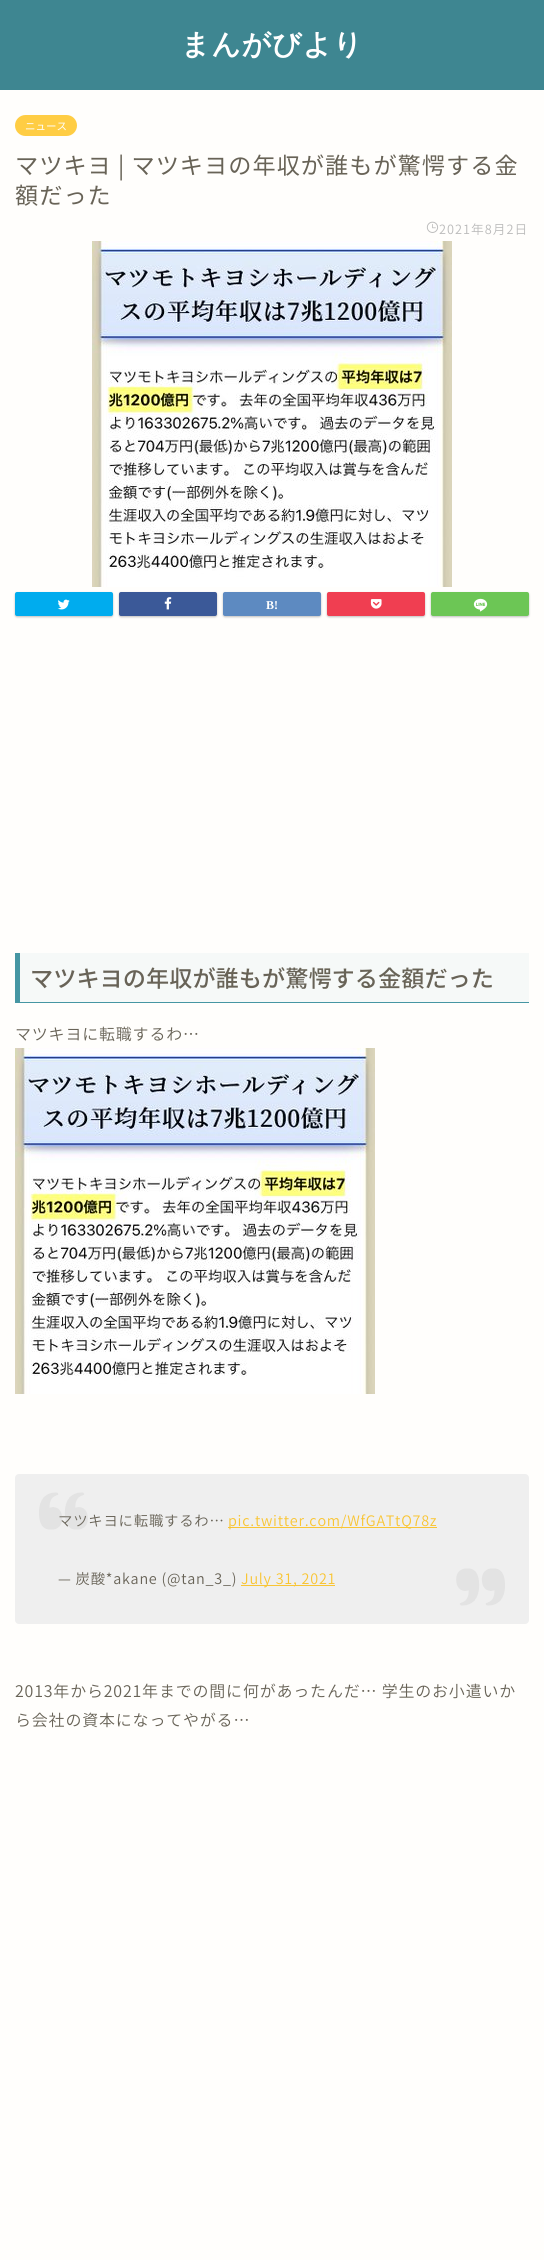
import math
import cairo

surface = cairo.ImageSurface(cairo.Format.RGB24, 544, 2260)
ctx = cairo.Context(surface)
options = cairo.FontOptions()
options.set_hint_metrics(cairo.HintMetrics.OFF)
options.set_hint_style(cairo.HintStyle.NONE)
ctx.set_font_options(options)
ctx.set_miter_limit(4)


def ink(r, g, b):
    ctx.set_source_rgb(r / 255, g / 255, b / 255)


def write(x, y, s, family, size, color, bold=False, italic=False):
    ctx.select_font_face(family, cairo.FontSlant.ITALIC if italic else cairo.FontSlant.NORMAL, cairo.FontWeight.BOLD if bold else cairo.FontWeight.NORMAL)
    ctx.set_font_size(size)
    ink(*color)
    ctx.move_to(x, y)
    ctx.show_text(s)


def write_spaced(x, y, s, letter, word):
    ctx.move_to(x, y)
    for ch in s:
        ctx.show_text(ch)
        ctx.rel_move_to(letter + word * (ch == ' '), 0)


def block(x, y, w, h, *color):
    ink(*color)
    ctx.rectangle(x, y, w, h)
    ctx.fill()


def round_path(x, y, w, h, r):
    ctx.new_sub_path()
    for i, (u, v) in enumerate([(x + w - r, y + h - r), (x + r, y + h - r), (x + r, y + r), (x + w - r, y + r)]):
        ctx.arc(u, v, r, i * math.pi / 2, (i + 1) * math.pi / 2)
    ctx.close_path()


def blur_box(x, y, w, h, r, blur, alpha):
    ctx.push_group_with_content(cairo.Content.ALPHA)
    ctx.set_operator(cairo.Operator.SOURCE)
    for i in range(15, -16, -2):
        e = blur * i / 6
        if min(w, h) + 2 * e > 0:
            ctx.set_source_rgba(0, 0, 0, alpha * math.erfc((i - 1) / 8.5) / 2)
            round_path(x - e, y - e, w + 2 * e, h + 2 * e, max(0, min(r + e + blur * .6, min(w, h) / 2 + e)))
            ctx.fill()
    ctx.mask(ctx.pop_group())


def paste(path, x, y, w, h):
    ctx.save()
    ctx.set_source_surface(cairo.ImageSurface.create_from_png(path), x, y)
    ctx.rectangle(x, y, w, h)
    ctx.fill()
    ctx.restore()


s1 = dict(family="Noto Sans JP", size=10.5, color=(255, 255, 255))
s2 = dict(family="Liberation Serif", size=12, color=(255, 255, 255), bold=True)
s3 = dict(family="Noto Sans JP Medium", size=23.2, color=(104, 99, 87))

ink(255, 254, 252)
ctx.paint()
block(20, 953, 509, 49, 246, 249, 248)
block(0, 0, 544, 90, 62, 134, 145)
ctx.select_font_face("WenQuanYi Zen Hei", cairo.FontSlant.NORMAL, cairo.FontWeight.BOLD)
ctx.set_font_size(28.75)
ink(255, 255, 255)
write_spaced(181, 54, "まんがびより", 1, 0)
ink(255, 205, 68)
round_path(15, 115, 62, 21, 10.5)
ctx.fill()
write(25, 130, "ニュース", **s1)
ctx.set_font_size(23.2)
ink(104, 99, 87)
write_spaced(15, 174, "マツキヨ | マツキヨの年収が誰もが驚愕する金", 1, 0)
write_spaced(15, 204, "額だった", 1, 0)
paste("pic1.png", 426, 221, 13, 12)
ctx.select_font_face("Noto Sans JP Light")
ctx.set_font_size(12.75)
ink(187, 187, 187)
write_spaced(439, 234, "2021年8月2日", 1, 0)
paste("pic2.png", 92, 241, 360, 346)
ink(0, 0, 0)
blur_box(15, 593, 98, 24, 2, 1, 0.25)
ink(0, 172, 238)
round_path(16, 593, 96, 22, 1)
ctx.fill_preserve()
ctx.stroke()
paste("pic3.png", 57, 599, 13, 11)
ink(0, 0, 0)
blur_box(119, 593, 98, 24, 2, 1, 0.25)
ink(59, 89, 152)
round_path(120, 593, 96, 22, 1)
ctx.fill_preserve()
ctx.stroke()
paste("pic4.png", 164, 597, 8, 13)
ink(0, 0, 0)
blur_box(223, 593, 98, 24, 2, 1, 0.25)
ink(93, 138, 193)
round_path(224, 593, 96, 22, 1)
ctx.fill_preserve()
ctx.stroke()
write(266, 609, "B!", **s2)
ink(0, 0, 0)
blur_box(327, 593, 98, 24, 2, 1, 0.25)
ink(240, 62, 81)
round_path(328, 593, 96, 22, 1)
ctx.fill_preserve()
ctx.stroke()
paste("pic5.png", 370, 599, 12, 10)
ink(0, 0, 0)
blur_box(431, 593, 98, 24, 2, 1, 0.25)
ink(108, 198, 85)
round_path(432, 593, 96, 22, 1)
ctx.fill_preserve()
ctx.stroke()
paste("pic6.png", 473, 598, 15, 14)
block(15, 1002, 514, 1, 70, 150, 163)
block(15, 953, 5, 50, 70, 150, 163)
write(30, 987, "マツキヨの年収が誰もが驚愕する金額だった", **s3)
ctx.select_font_face("Noto Sans JP Light")
ctx.set_font_size(16)
write_spaced(15, 1040, "マツキヨに転職するわ…", 0.8, 0)
paste("pic2.png", 15, 1048, 360, 346)
ink(239, 239, 239)
round_path(15, 1474, 514, 150, 4)
ctx.fill()
ctx.set_font_size(14.4)
ink(104, 99, 87)
write_spaced(58, 1526, "マツキヨに転職するわ…", 0.75, 0)
paste("pic7.png", 39, 1492, 49, 38)
block(228, 1527, 209, 1, 249, 197, 52)
write_spaced(228, 1526, "pic.twitter.com/WfGATtQ78z", 0.75, 0)
ink(104, 99, 87)
write_spaced(58, 1584, "— 炭酸*akane (@tan_3_)", 0.75, 0)
block(241, 1585, 94, 1, 249, 197, 52)
write_spaced(241, 1584, "July 31, 2021", 0.75, 0)
paste("pic8.png", 456, 1568, 49, 38)
ctx.set_font_size(16)
ink(104, 99, 87)
write_spaced(15, 1697, "2013年から2021年までの間に何があったんだ… 学生のお小遣いか", 0.8, 0)
write_spaced(15, 1726, "ら会社の資本になってやがる…", 0.8, 0)
surface.write_to_png("screenshot.png")
